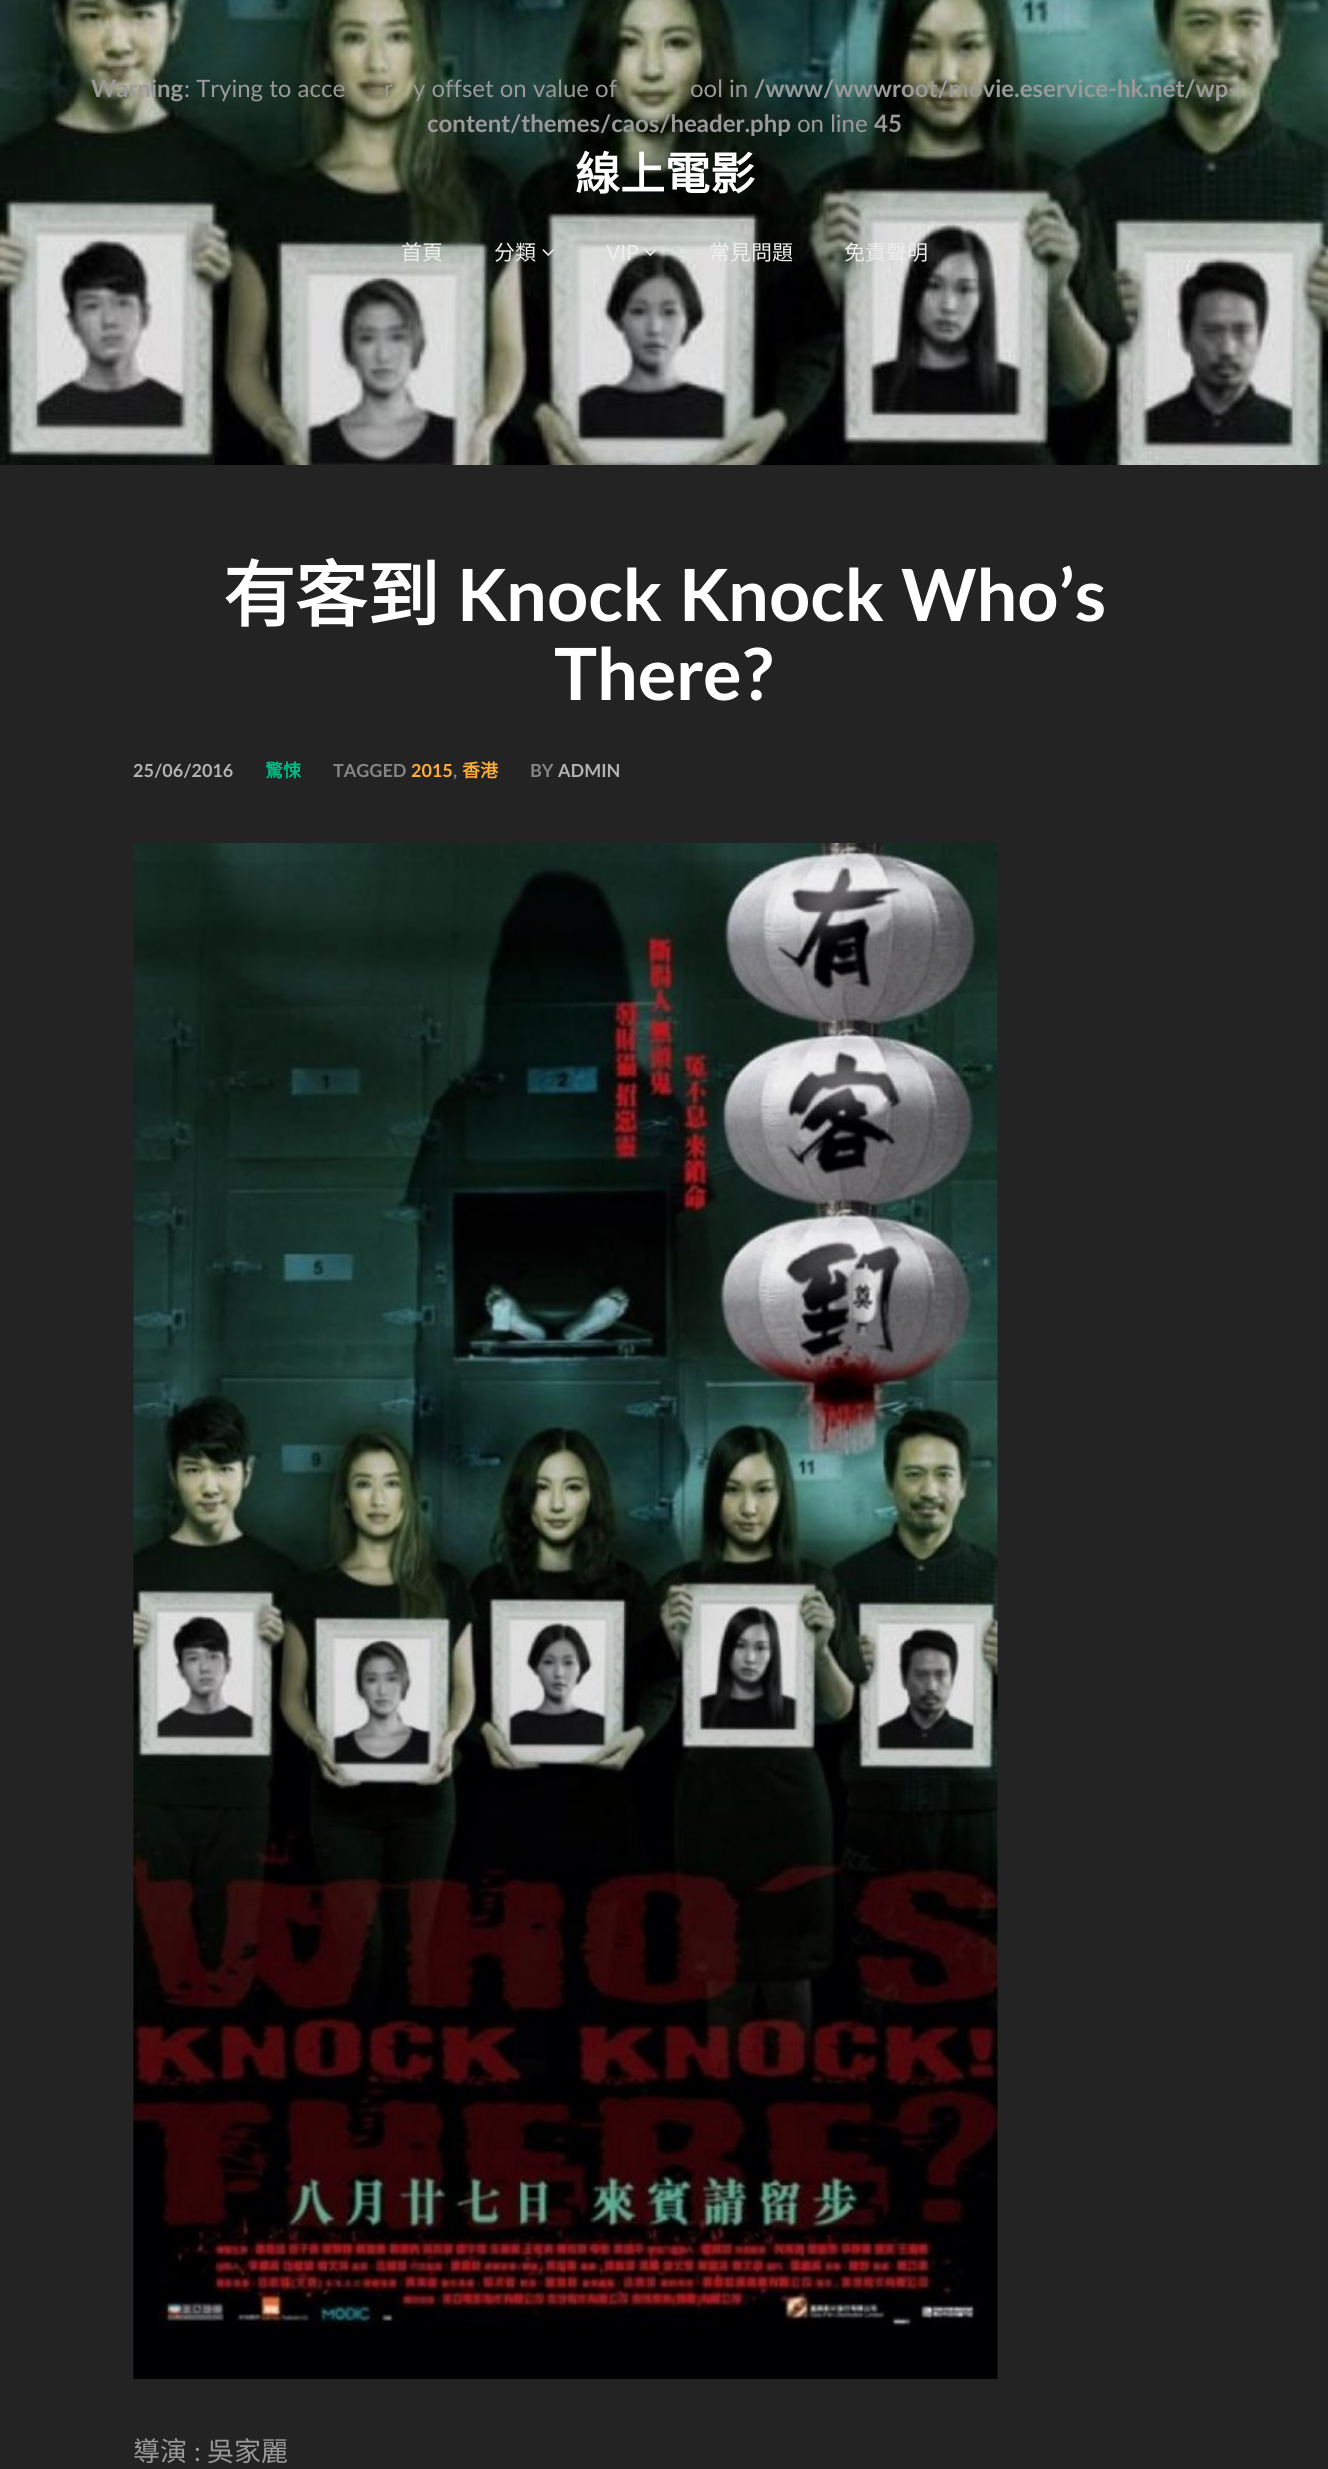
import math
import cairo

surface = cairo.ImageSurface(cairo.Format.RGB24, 1328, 2469)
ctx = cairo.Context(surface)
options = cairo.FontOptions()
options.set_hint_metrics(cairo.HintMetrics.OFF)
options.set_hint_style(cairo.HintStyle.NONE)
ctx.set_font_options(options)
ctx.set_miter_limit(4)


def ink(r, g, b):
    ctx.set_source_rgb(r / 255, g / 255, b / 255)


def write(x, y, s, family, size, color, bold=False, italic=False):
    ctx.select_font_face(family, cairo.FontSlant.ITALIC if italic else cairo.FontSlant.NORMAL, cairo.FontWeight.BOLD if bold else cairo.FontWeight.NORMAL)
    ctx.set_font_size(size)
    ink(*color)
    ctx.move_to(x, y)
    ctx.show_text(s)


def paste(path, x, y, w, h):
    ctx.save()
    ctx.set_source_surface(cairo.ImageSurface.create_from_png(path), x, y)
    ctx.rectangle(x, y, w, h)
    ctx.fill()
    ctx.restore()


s1 = dict(family="Lato", size=24, color=(153, 153, 153), bold=True)
s2 = dict(family="Lato", size=24, color=(153, 153, 153))
s3 = dict(family="Noto Sans CJK HK", size=45, color=(255, 255, 255), bold=True)
s4 = dict(family="Noto Sans CJK HK", size=21, color=(238, 238, 238))
s5 = dict(family="Lato", size=21, color=(238, 238, 238))
s6 = dict(family="Noto Sans CJK HK", size=72, color=(255, 255, 255), bold=True)
s7 = dict(family="Lato", size=72, color=(255, 255, 255), bold=True)
s8 = dict(family="Lato", size=18, color=(179, 179, 179), bold=True)
s9 = dict(family="Noto Sans CJK HK", size=18, color=(0, 189, 133), bold=True)
s10 = dict(family="Lato", size=18, color=(133, 133, 133), bold=True)
s11 = dict(family="Lato", size=18, color=(255, 175, 54), bold=True)
s12 = dict(family="Noto Sans CJK HK", size=18, color=(255, 175, 54), bold=True)
s13 = dict(family="Noto Sans CJK HK", size=27, color=(153, 153, 153))
s14 = dict(family="Lato", size=27, color=(153, 153, 153))

ink(35, 35, 35)
ctx.paint()
paste("pic3.png", 0, 0, 1328, 465)
write(91, 97, "Warning", **s1)
write(184, 97, ": Trying to acce", **s2)
write(384, 97, "r", **s2)
write(413, 97, "y offset on value of", **s2)
write(690, 97, "ool in", **s2)
write(754, 97, "/www/wwwroot/movie.eservice-hk.net/wp-", **s1)
write(427, 132, "content/themes/caos/header.php", **s1)
write(797, 132, "on line", **s2)
write(874, 132, "45", **s1)
write(575, 190, "線上電影", **s3)
write(401, 260, "首頁", **s4)
write(494, 260, "分類", **s4)
paste("pic1.png", 542, 249, 12, 7)
write(606, 260, "VIP", **s5)
paste("pic2.png", 644, 249, 12, 7)
write(709, 260, "常見問題", **s4)
write(844, 260, "免責聲明", **s4)
write(223, 621, "有客到", **s6)
write(457, 621, "Knock Knock Who’s", **s7)
write(554, 700, "There?", **s7)
write(133, 777, "25/06/2016", **s8)
write(265, 777, "驚悚", **s9)
write(333, 777, "TAGGED", **s10)
write(411, 777, "2015", **s11)
write(453, 777, ",", **s10)
write(462, 777, "香港", **s12)
write(530, 777, "BY", **s10)
write(558, 777, "ADMIN", **s8)
paste("pic4.png", 133, 843, 865, 1536)
write(133, 2461, "導演", **s13)
write(194, 2461, ":", **s14)
write(207, 2461, "吳家麗", **s13)
surface.write_to_png("screenshot.png")
